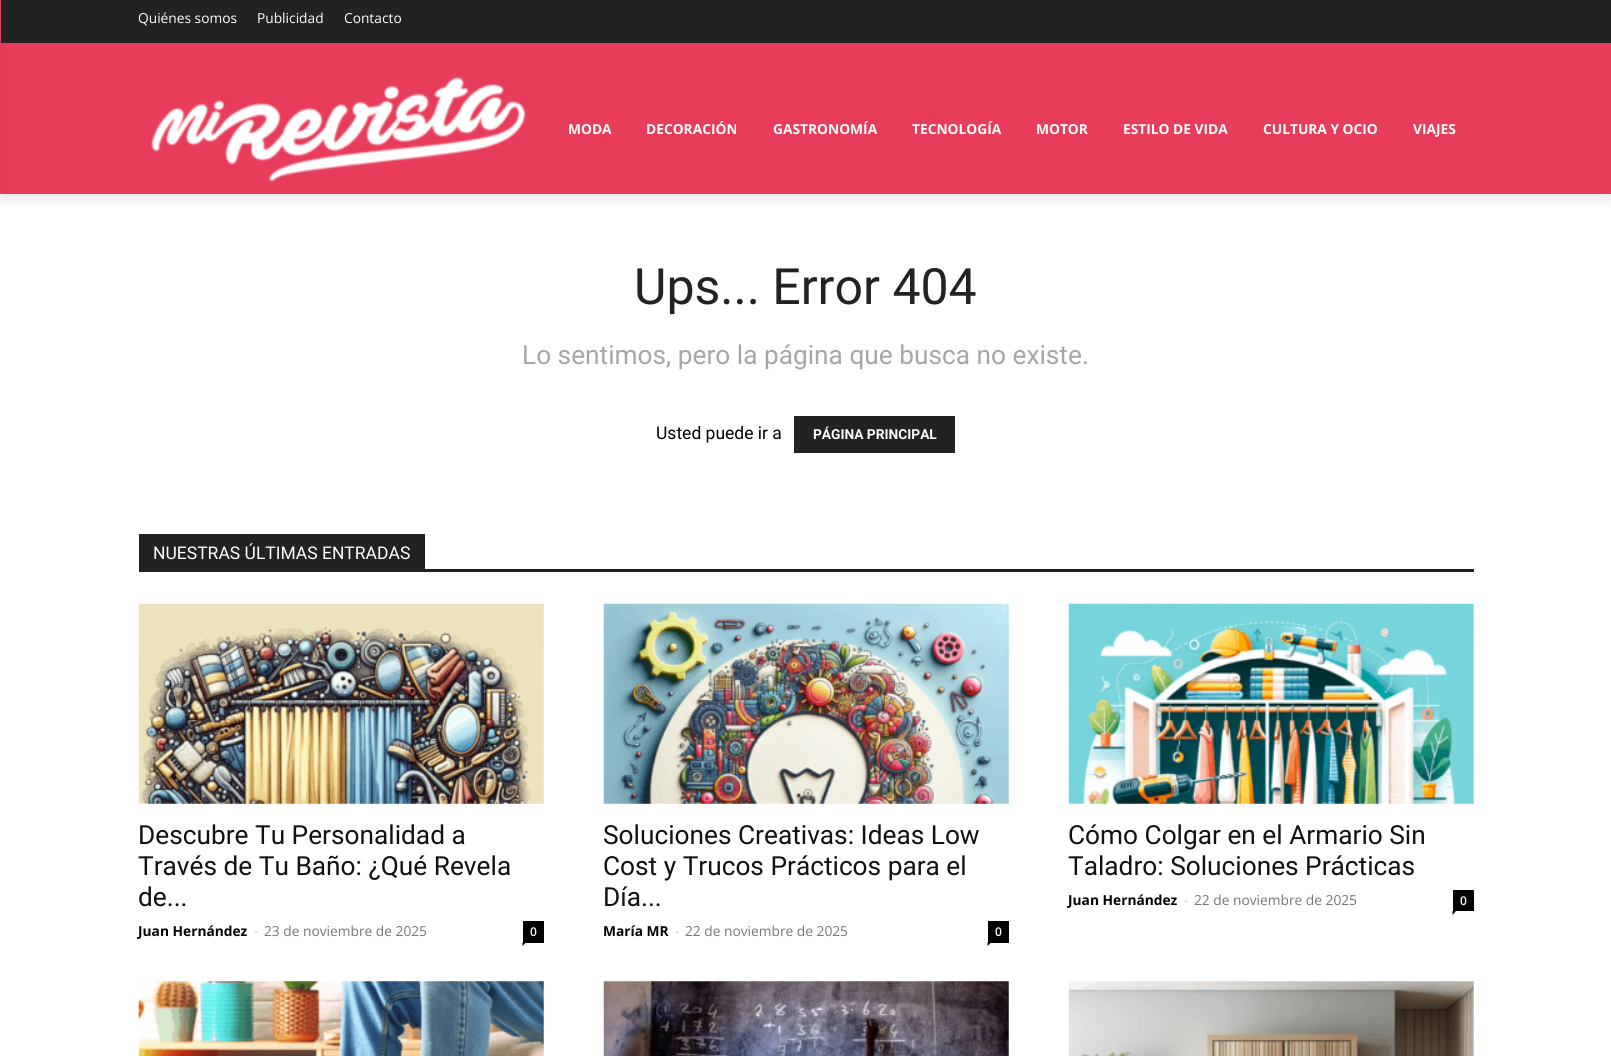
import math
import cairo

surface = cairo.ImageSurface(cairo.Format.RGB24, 1611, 1056)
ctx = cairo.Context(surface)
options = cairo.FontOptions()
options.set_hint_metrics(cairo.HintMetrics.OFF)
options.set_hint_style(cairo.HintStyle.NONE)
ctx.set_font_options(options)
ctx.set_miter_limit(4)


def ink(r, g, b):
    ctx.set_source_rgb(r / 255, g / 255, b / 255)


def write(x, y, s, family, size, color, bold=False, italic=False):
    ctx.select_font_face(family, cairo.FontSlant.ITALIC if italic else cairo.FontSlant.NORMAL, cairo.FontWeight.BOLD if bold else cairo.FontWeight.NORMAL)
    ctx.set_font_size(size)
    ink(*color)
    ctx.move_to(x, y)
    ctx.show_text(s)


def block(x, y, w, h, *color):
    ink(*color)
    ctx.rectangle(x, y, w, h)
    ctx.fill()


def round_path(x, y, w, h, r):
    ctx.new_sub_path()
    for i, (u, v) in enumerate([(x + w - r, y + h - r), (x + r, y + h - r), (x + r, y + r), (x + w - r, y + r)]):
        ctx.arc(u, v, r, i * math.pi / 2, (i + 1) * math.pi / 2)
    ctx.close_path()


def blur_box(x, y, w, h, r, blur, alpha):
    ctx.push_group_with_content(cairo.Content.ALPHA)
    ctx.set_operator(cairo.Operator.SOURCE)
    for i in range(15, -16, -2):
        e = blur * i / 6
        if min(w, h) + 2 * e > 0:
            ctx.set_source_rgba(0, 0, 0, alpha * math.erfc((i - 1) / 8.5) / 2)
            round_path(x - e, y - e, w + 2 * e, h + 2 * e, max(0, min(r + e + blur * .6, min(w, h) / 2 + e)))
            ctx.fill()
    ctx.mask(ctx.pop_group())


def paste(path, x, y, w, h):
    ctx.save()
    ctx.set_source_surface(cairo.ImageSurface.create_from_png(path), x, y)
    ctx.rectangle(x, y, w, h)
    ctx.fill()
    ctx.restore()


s1 = dict(family="Open Sans", size=13.75, color=(255, 255, 255))
s2 = dict(family="Open Sans", size=13.75, color=(255, 255, 255), bold=True)
s3 = dict(family="Roboto", size=50, color=(34, 34, 34))
s4 = dict(family="Roboto", size=26.25, color=(166, 166, 166))
s5 = dict(family="Roboto", size=17.5, color=(0, 0, 0))
s6 = dict(family="Roboto", size=13.75, color=(255, 255, 255), bold=True)
s7 = dict(family="Roboto", size=17.5, color=(255, 255, 255))
s8 = dict(family="Roboto", size=26.25, color=(17, 17, 17))
s9 = dict(family="Open Sans", size=13.75, color=(0, 0, 0), bold=True)
s10 = dict(family="Open Sans", size=13.75, color=(204, 204, 204))
s11 = dict(family="Open Sans", size=13.75, color=(118, 118, 118))
s12 = dict(family="Open Sans SemiBold", size=12, color=(255, 255, 255))

ink(255, 255, 255)
ctx.paint()
block(0, 0, 1611, 194, 232, 61, 90)
block(1, 0, 1610, 43, 34, 34, 34)
paste("pic1.png", 151, 77, 375, 105)
ctx.save()
ctx.set_fill_rule(cairo.FillRule.EVEN_ODD)
ctx.new_path()
ctx.move_to(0, 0)
ctx.line_to(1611, 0)
ctx.line_to(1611, 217)
ctx.line_to(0, 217)
ctx.close_path()
ctx.move_to(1, 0)
ctx.line_to(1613, 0)
ctx.line_to(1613, 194)
ctx.line_to(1, 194)
ctx.close_path()
ctx.clip()
ink(0, 0, 0)
blur_box(1, 8, 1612, 193, 0, 5, 0.08)
ctx.restore()
write(138, 23, "Quiénes somos", **s1)
write(257, 23, "Publicidad", **s1)
write(344, 23, "Contacto", **s1)
write(568, 134, "MODA", **s2)
write(646, 134, "DECORACIÓN", **s2)
write(773, 134, "GASTRONOMÍA", **s2)
write(912, 134, "TECNOLOGÍA", **s2)
write(1036, 134, "MOTOR", **s2)
write(1123, 134, "ESTILO DE VIDA", **s2)
write(1263, 134, "CULTURA Y OCIO", **s2)
write(1413, 134, "VIAJES", **s2)
write(634, 304, "Ups... Error 404", **s3)
write(522, 364, "Lo sentimos, pero la página que busca no existe.", **s4)
write(656, 439, "Usted puede ir a", **s5)
block(794, 416, 161, 37, 34, 34, 34)
write(813, 439, "PÁGINA PRINCIPAL", **s6)
block(139, 569, 1335, 3, 34, 34, 34)
block(139, 534, 286, 35, 34, 34, 34)
write(153, 559, "NUESTRAS ÚLTIMAS ENTRADAS", **s7)
paste("pic2.png", 138, 603, 406, 201)
write(138, 844, "Descubre Tu Personalidad a", **s8)
write(138, 875, "Través de Tu Baño: ¿Qué Revela", **s8)
write(138, 906, "de...", **s8)
write(138, 936, "Juan Hernández", **s9)
write(254, 936, "-", **s10)
write(264, 936, "23 de noviembre de 2025", **s11)
block(523, 921, 21, 22, 0, 0, 0)
write(530, 936, "0", **s12)
ink(0, 0, 0)
ctx.new_path()
ctx.move_to(522.5, 942.5)
ctx.line_to(526, 942.5)
ctx.line_to(522.5, 946)
ctx.close_path()
ctx.fill()
paste("pic3.png", 603, 603, 406, 201)
write(603, 844, "Soluciones Creativas: Ideas Low", **s8)
write(603, 875, "Cost y Trucos Prácticos para el", **s8)
write(603, 906, "Día...", **s8)
write(603, 936, "María MR", **s9)
write(675, 936, "-", **s10)
write(685, 936, "22 de noviembre de 2025", **s11)
block(988, 921, 21, 22, 0, 0, 0)
write(995, 936, "0", **s12)
ink(0, 0, 0)
ctx.new_path()
ctx.move_to(987.5, 942.5)
ctx.line_to(991, 942.5)
ctx.line_to(987.5, 946)
ctx.close_path()
ctx.fill()
paste("pic4.png", 1068, 603, 406, 201)
write(1068, 844, "Cómo Colgar en el Armario Sin", **s8)
write(1068, 875, "Taladro: Soluciones Prácticas", **s8)
write(1068, 905, "Juan Hernández", **s9)
write(1184, 905, "-", **s10)
write(1194, 905, "22 de noviembre de 2025", **s11)
block(1453, 890, 21, 21, 0, 0, 0)
write(1460, 905, "0", **s12)
ink(0, 0, 0)
ctx.new_path()
ctx.move_to(1452.5, 911)
ctx.line_to(1456, 911)
ctx.line_to(1452.5, 915)
ctx.close_path()
ctx.fill()
paste("pic5.png", 138, 981, 406, 75)
paste("pic6.png", 603, 981, 406, 75)
paste("pic7.png", 1068, 981, 406, 75)
surface.write_to_png("screenshot.png")
